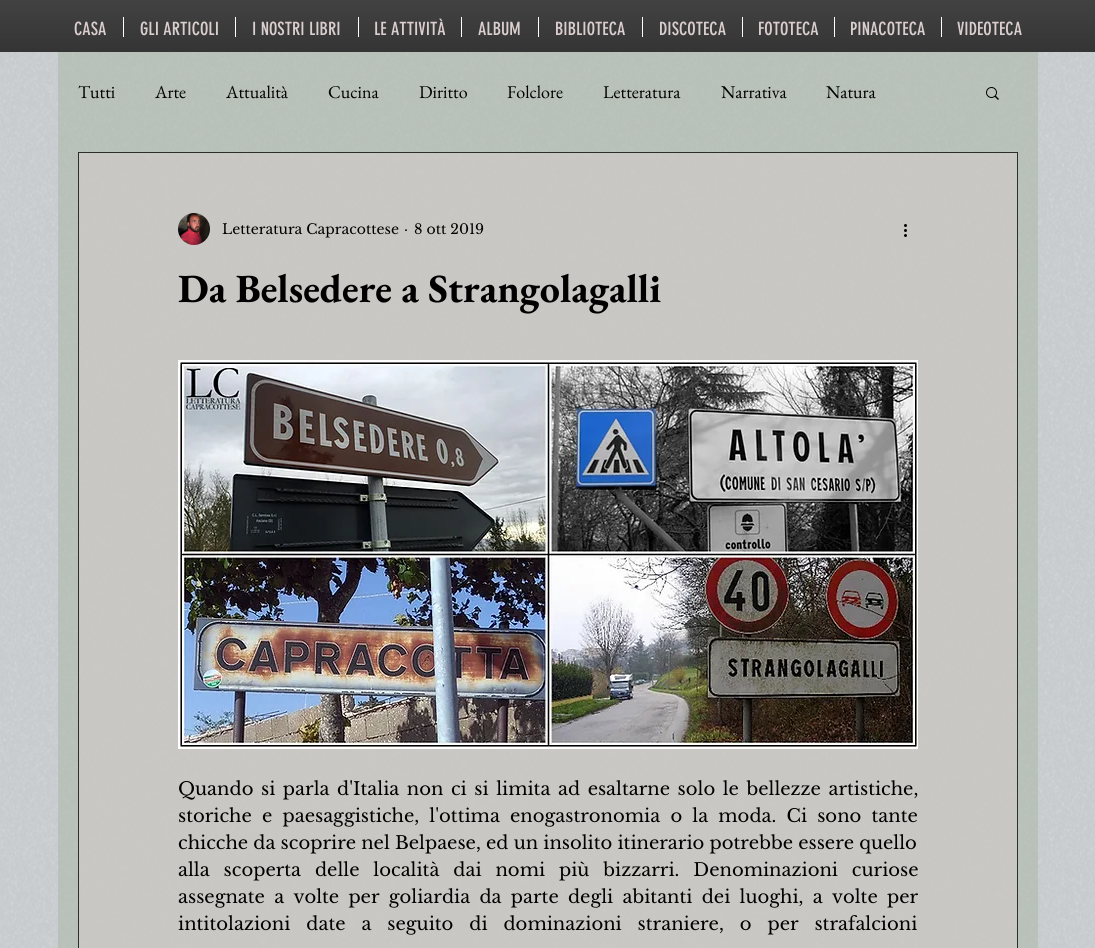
import math
import cairo

surface = cairo.ImageSurface(cairo.Format.RGB24, 1095, 948)
ctx = cairo.Context(surface)
options = cairo.FontOptions()
options.set_hint_metrics(cairo.HintMetrics.OFF)
options.set_hint_style(cairo.HintStyle.NONE)
ctx.set_font_options(options)
ctx.set_miter_limit(4)


def ink(r, g, b):
    ctx.set_source_rgb(r / 255, g / 255, b / 255)


def write(x, y, s, family, size, color, bold=False, italic=False):
    ctx.select_font_face(family, cairo.FontSlant.ITALIC if italic else cairo.FontSlant.NORMAL, cairo.FontWeight.BOLD if bold else cairo.FontWeight.NORMAL)
    ctx.set_font_size(size)
    ink(*color)
    ctx.move_to(x, y)
    ctx.show_text(s)


def write_spaced(x, y, s, letter, word):
    ctx.move_to(x, y)
    for ch in s:
        ctx.show_text(ch)
        ctx.rel_move_to(letter + word * (ch == ' '), 0)


def block(x, y, w, h, *color):
    ink(*color)
    ctx.rectangle(x, y, w, h)
    ctx.fill()


def paste(path, x, y, w, h):
    ctx.save()
    ctx.set_source_surface(cairo.ImageSurface.create_from_png(path), x, y)
    ctx.rectangle(x, y, w, h)
    ctx.fill()
    ctx.restore()


s1 = dict(family="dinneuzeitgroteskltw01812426", size=18, color=(219, 206, 207))
s2 = dict(family="EB Garamond", size=18, color=(0, 0, 0))
s3 = dict(family="Libre Baskerville", size=14, color=(0, 0, 0))
s4 = dict(family="EB Garamond", size=40, color=(0, 0, 0), bold=True)
s5 = dict(family="Libre Baskerville", size=18, color=(0, 0, 0))

ink(230, 233, 235)
ctx.paint()
block(0, 0, 1095, 52, 0, 0, 0)
paste("pic1.png", 0, 0, 1095, 52)
write(74, 35, "CASA", **s1)
block(123, 17, 1, 20, 255, 255, 255)
write(140, 35, "GLI ARTICOLI", **s1)
block(235, 17, 1, 20, 255, 255, 255)
write(252, 35, "I NOSTRI LIBRI", **s1)
block(358, 17, 1, 20, 255, 255, 255)
write(374, 35, "LE ATTIVITÀ", **s1)
block(461, 17, 1, 20, 255, 255, 255)
write(478, 35, "ALBUM", **s1)
block(538, 17, 1, 20, 255, 255, 255)
write(555, 35, "BIBLIOTECA", **s1)
block(642, 17, 1, 20, 255, 255, 255)
write(659, 35, "DISCOTECA", **s1)
block(742, 17, 1, 20, 255, 255, 255)
write(758, 35, "FOTOTECA", **s1)
block(834, 17, 1, 20, 255, 255, 255)
write(850, 35, "PINACOTECA", **s1)
block(941, 17, 1, 20, 255, 255, 255)
write(957, 35, "VIDEOTECA", **s1)
paste("pic6.png", 0, 52, 1095, 896)
ctx.set_source_rgba(0.663, 0.714, 0.643, 0.5)
ctx.rectangle(58, 52, 980, 896)
ctx.fill()
write(78, 98, "Tutti", **s2)
write(155, 98, "Arte", **s2)
write(226, 98, "Attualità", **s2)
write(328, 98, "Cucina", **s2)
write(419, 98, "Diritto", **s2)
write(507, 98, "Folclore", **s2)
write(603, 98, "Letteratura", **s2)
write(721, 98, "Narrativa", **s2)
write(826, 98, "Natura", **s2)
paste("pic2.png", 986, 87, 13, 13)
ctx.set_source_rgba(0.859, 0.808, 0.812, 0.5)
ctx.rectangle(78.5, 152.5, 939, 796)
ctx.fill_preserve()
ink(42, 48, 39)
ctx.set_line_width(1)
ctx.stroke()
paste("pic3.png", 178, 213, 32, 32)
write(222, 234, "Letteratura Capracottese", **s3)
write(404, 234, "·", **s3)
write(414, 234, "8 ott 2019", **s3)
paste("pic4.png", 904, 224, 3, 13)
write(178, 302, "Da Belsedere a Strangolagalli", **s4)
paste("pic5.png", 178, 360, 740, 389)
ctx.select_font_face("Libre Baskerville")
ctx.set_font_size(18)
write_spaced(178, 795, "Quando si parla d'Italia non ci si limita ad esaltarne solo le bellezze artistiche,", 0, 2.4)
write_spaced(178, 822, "storiche e paesaggistiche, l'ottima enogastronomia o la moda. Ci sono tante", 0, 5)
write(178, 849, "chicche da scoprire nel Belpaese, ed un insolito itinerario potrebbe essere quello", **s5)
write_spaced(178, 876, "alla scoperta delle località dai nomi più bizzarri. Denominazioni curiose", 0, 8.75)
write_spaced(178, 903, "assegnate a volte per goliardia da parte degli abitanti dei luoghi, a volte per", 0, 4.1)
write_spaced(178, 930, "intitolazioni date a seguito di dominazioni straniere, o per strafalcioni", 0, 10.75)
surface.write_to_png("screenshot.png")
